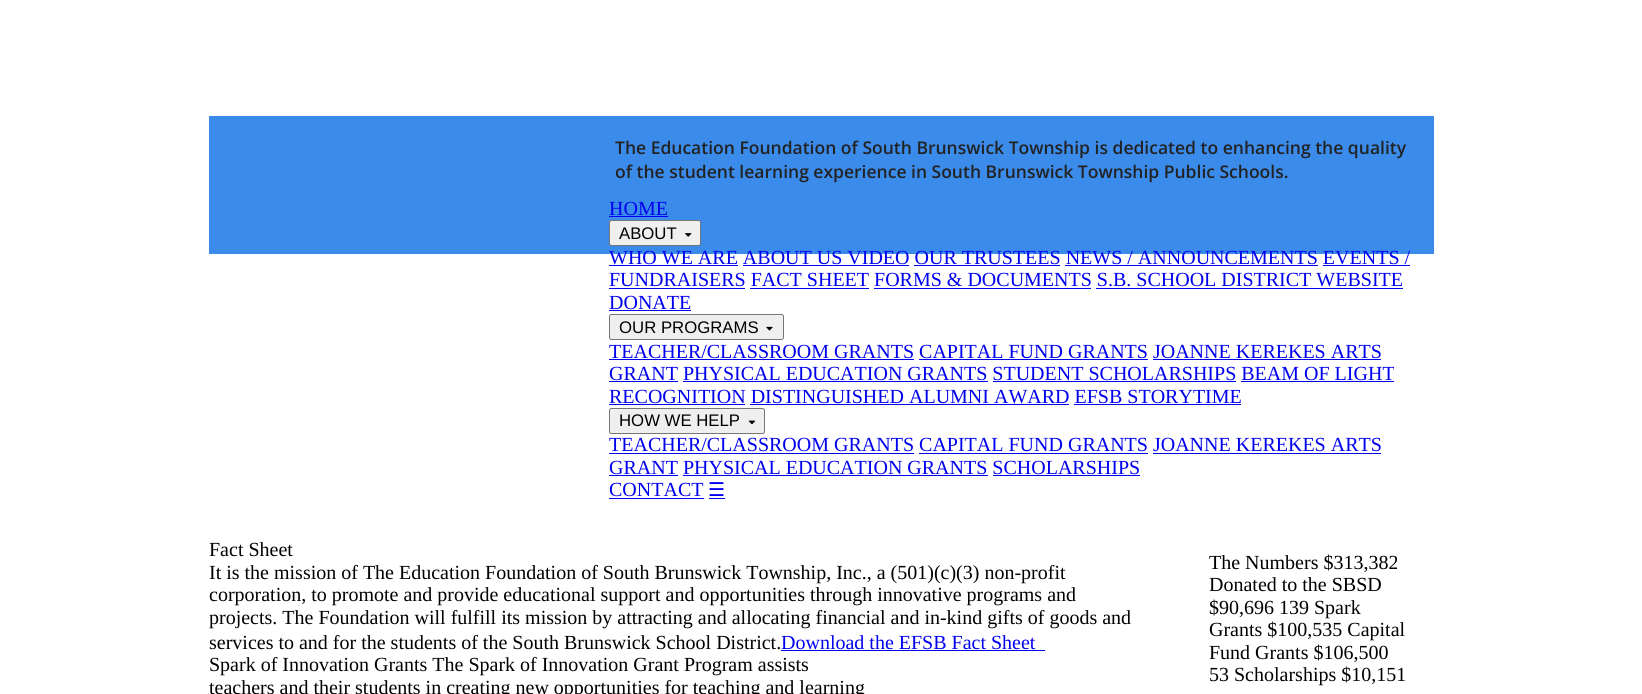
import math
import cairo

surface = cairo.ImageSurface(cairo.Format.RGB24, 1642, 694)
ctx = cairo.Context(surface)
options = cairo.FontOptions()
options.set_hint_metrics(cairo.HintMetrics.OFF)
options.set_hint_style(cairo.HintStyle.NONE)
ctx.set_font_options(options)
ctx.set_miter_limit(4)


def ink(r, g, b):
    ctx.set_source_rgb(r / 255, g / 255, b / 255)


def write(x, y, s, family, size, color, bold=False, italic=False):
    ctx.select_font_face(family, cairo.FontSlant.ITALIC if italic else cairo.FontSlant.NORMAL, cairo.FontWeight.BOLD if bold else cairo.FontWeight.NORMAL)
    ctx.set_font_size(size)
    ink(*color)
    ctx.move_to(x, y)
    ctx.show_text(s)


def block(x, y, w, h, *color):
    ink(*color)
    ctx.rectangle(x, y, w, h)
    ctx.fill()


def round_path(x, y, w, h, r):
    ctx.new_sub_path()
    for i, (u, v) in enumerate([(x + w - r, y + h - r), (x + r, y + h - r), (x + r, y + r), (x + w - r, y + r)]):
        ctx.arc(u, v, r, i * math.pi / 2, (i + 1) * math.pi / 2)
    ctx.close_path()


def paste(path, x, y, w, h):
    ctx.save()
    ctx.set_source_surface(cairo.ImageSurface.create_from_png(path), x, y)
    ctx.rectangle(x, y, w, h)
    ctx.fill()
    ctx.restore()


s1 = dict(family="Open Sans SemiBold", size=17.5, color=(34, 34, 34))
s2 = dict(family="Liberation Serif", size=20, color=(0, 0, 238))
s3 = dict(family="Liberation Sans", size=16.75, color=(0, 0, 0))
s4 = dict(family="DejaVu Sans", size=19, color=(0, 0, 238))
s5 = dict(family="Liberation Serif", size=20, color=(0, 0, 0))

ink(255, 255, 255)
ctx.paint()
block(209, 116, 1225, 138, 59, 139, 235)
write(615, 154, "The Education Foundation of South Brunswick Township is dedicated to enhancing the quality", **s1)
write(615, 178, "of the student learning experience in South Brunswick Township Public Schools.", **s1)
write(609, 215, "HOME", **s2)
block(609, 216, 59, 1, 0, 0, 238)
ink(239, 239, 239)
round_path(609.5, 220.5, 91, 25, 2)
ctx.fill_preserve()
ink(118, 118, 118)
ctx.set_line_width(1)
ctx.stroke()
write(619, 239, "ABOUT", **s3)
paste("pic1.png", 685, 233, 7, 4)
write(609, 264, "WHO WE ARE ABOUT US VIDEO OUR TRUSTEES NEWS / ANNOUNCEMENTS EVENTS /", **s2)
block(609, 265, 129, 1, 0, 0, 238)
block(743, 265, 166, 1, 0, 0, 238)
block(914, 265, 146, 1, 0, 0, 238)
block(1065, 265, 253, 1, 0, 0, 238)
write(609, 286, "FUNDRAISERS FACT SHEET FORMS & DOCUMENTS S.B. SCHOOL DISTRICT WEBSITE", **s2)
block(1323, 265, 87, 1, 0, 0, 238)
block(609, 288, 136, 1, 0, 0, 238)
block(750, 288, 119, 1, 0, 0, 238)
block(874, 288, 217, 1, 0, 0, 238)
block(1096, 288, 307, 1, 0, 0, 238)
write(609, 309, "DONATE", **s2)
block(609, 310, 82, 1, 0, 0, 238)
ink(239, 239, 239)
round_path(609.5, 314.5, 174, 25, 2)
ctx.fill_preserve()
ink(118, 118, 118)
ctx.stroke()
write(619, 333, "OUR PROGRAMS", **s3)
paste("pic2.png", 766, 326, 7, 5)
write(609, 358, "TEACHER/CLASSROOM GRANTS CAPITAL FUND GRANTS JOANNE KEREKES ARTS", **s2)
block(609, 359, 305, 1, 0, 0, 238)
block(919, 359, 229, 1, 0, 0, 238)
write(609, 380, "GRANT PHYSICAL EDUCATION GRANTS STUDENT SCHOLARSHIPS BEAM OF LIGHT", **s2)
block(1153, 359, 228, 1, 0, 0, 238)
block(609, 381, 69, 1, 0, 0, 238)
block(683, 381, 305, 1, 0, 0, 238)
block(993, 381, 243, 1, 0, 0, 238)
write(609, 403, "RECOGNITION DISTINGUISHED ALUMNI AWARD EFSB STORYTIME", **s2)
block(1241, 381, 153, 1, 0, 0, 238)
block(609, 404, 136, 1, 0, 0, 238)
block(750, 404, 319, 1, 0, 0, 238)
block(1074, 404, 167, 1, 0, 0, 238)
ink(239, 239, 239)
round_path(609.5, 408.5, 155, 25, 2)
ctx.fill_preserve()
ink(118, 118, 118)
ctx.stroke()
write(619, 426, "HOW WE HELP", **s3)
paste("pic3.png", 748, 420, 8, 5)
write(609, 451, "TEACHER/CLASSROOM GRANTS CAPITAL FUND GRANTS JOANNE KEREKES ARTS", **s2)
block(609, 453, 305, 1, 0, 0, 238)
block(919, 453, 229, 1, 0, 0, 238)
write(609, 474, "GRANT PHYSICAL EDUCATION GRANTS SCHOLARSHIPS", **s2)
block(1153, 453, 228, 1, 0, 0, 238)
block(609, 475, 69, 1, 0, 0, 238)
block(683, 475, 305, 1, 0, 0, 238)
block(993, 475, 147, 1, 0, 0, 238)
write(609, 496, "CONTACT", **s2)
block(609, 498, 95, 1, 0, 0, 238)
write(708, 496, "☰", **s4)
block(709, 498, 16, 1, 0, 0, 238)
write(209, 556, "Fact Sheet", **s5)
write(209, 579, "It is the mission of The Education Foundation of South Brunswick Township, Inc., a (501)(c)(3) non-profit", **s5)
write(209, 601, "corporation, to promote and provide educational support and opportunities through innovative programs and", **s5)
write(209, 624, "projects. The Foundation will fulfill its mission by attracting and allocating financial and in-kind gifts of goods and", **s5)
write(209, 649, "services to and for the students of the South Brunswick School District.", **s5)
write(781, 649, "Download the EFSB Fact Sheet", **s2)
block(781, 650, 264, 1, 0, 0, 238)
write(209, 671, "Spark of Innovation Grants The Spark of Innovation Grant Program assists", **s5)
write(209, 694, "teachers and their students in creating new opportunities for teaching and learning", **s5)
write(1209, 569, "The Numbers $313,382", **s5)
write(1209, 591, "Donated to the SBSD", **s5)
write(1209, 614, "$90,696 139 Spark", **s5)
write(1209, 636, "Grants $100,535 Capital", **s5)
write(1209, 659, "Fund Grants $106,500", **s5)
write(1209, 681, "53 Scholarships $10,151", **s5)
surface.write_to_png("screenshot.png")
